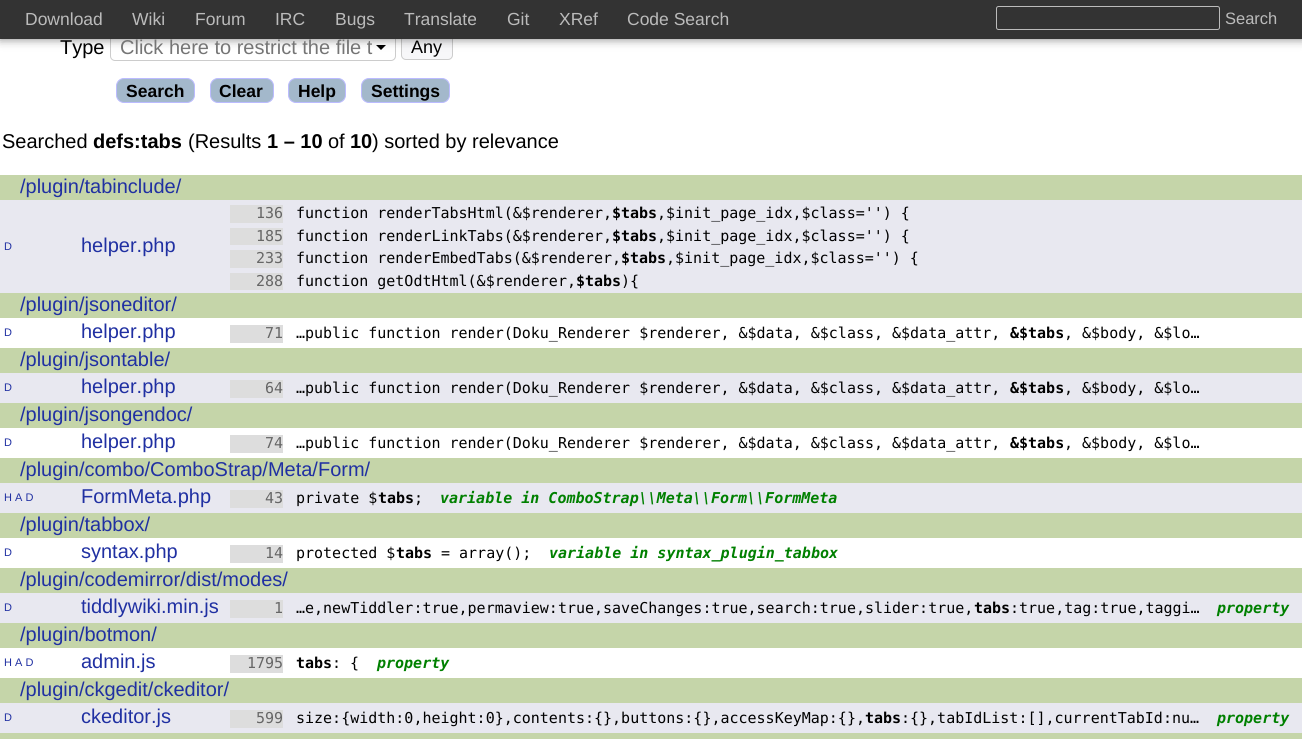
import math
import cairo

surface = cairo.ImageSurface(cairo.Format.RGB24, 1302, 739)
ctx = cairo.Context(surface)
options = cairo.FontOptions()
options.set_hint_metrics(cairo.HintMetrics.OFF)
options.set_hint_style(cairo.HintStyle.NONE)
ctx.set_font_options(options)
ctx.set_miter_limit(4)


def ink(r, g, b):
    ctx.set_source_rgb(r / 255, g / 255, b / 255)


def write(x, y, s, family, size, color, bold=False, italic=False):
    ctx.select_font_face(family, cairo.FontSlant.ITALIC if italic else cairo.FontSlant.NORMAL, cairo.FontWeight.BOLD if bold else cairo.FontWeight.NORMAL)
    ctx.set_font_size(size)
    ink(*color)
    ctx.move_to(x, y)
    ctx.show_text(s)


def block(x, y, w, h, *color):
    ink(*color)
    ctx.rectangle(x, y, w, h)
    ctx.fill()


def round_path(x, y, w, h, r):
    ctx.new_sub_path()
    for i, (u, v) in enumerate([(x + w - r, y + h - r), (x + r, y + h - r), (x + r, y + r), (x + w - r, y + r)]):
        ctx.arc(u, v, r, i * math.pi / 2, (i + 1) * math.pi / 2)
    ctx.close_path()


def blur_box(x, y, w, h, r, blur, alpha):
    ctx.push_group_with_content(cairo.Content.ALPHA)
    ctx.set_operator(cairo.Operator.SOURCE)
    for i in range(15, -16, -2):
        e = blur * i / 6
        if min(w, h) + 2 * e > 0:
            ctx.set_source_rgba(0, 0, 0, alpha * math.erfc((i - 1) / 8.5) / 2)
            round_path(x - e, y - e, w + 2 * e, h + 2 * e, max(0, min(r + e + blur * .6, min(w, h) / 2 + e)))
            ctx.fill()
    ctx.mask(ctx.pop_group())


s1 = dict(family="Liberation Sans", size=17.5, color=(187, 187, 187))
s2 = dict(family="Liberation Sans", size=16.5, color=(187, 187, 187))
s3 = dict(family="Liberation Sans", size=20, color=(0, 0, 0))
s4 = dict(family="Liberation Sans", size=20, color=(117, 117, 117))
s5 = dict(family="Liberation Sans", size=18, color=(0, 0, 0))
s6 = dict(family="Liberation Sans", size=17.5, color=(0, 0, 0), bold=True)
s7 = dict(family="Liberation Sans", size=20, color=(0, 0, 0), bold=True)
s8 = dict(family="Liberation Sans", size=20, color=(32, 48, 162))
s9 = dict(family="Liberation Sans", size=11, color=(32, 48, 162))
s10 = dict(family="DejaVu Sans Mono", size=15, color=(102, 102, 102))
s11 = dict(family="DejaVu Sans Mono", size=15, color=(0, 0, 0))
s12 = dict(family="DejaVu Sans Mono", size=15, color=(0, 0, 0), bold=True)
s13 = dict(family="DejaVu Sans Mono", size=15, color=(0, 128, 0), bold=True, italic=True)

ink(255, 255, 255)
ctx.paint()
round_path(110.5, 34.5, 285, 26, 4.5)
ink(204, 204, 204)
ctx.set_line_width(1)
ctx.stroke()
ink(0, 0, 0)
ctx.new_path()
ctx.move_to(376, 45)
ctx.line_to(386, 45)
ctx.line_to(381, 50)
ctx.close_path()
ctx.fill()
ink(247, 247, 249)
round_path(401.5, 33.5, 51, 26, 4.5)
ctx.fill_preserve()
ink(204, 204, 204)
ctx.stroke()
ink(0, 0, 0)
blur_box(0, 0, 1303, 39, 0, 5, 0.5)
block(0, 0, 1302, 39, 51, 51, 51)
write(25, 25, "Download", **s1)
write(132, 25, "Wiki", **s1)
write(195, 25, "Forum", **s1)
write(275, 25, "IRC", **s1)
write(335, 25, "Bugs", **s1)
write(404, 25, "Translate", **s1)
write(507, 25, "Git", **s1)
write(559, 25, "XRef", **s1)
write(627, 25, "Code Search", **s1)
round_path(996.5, 6.5, 223, 23, 2)
ctx.stroke()
write(1225, 24, "Search", **s2)
write(60, 54, "Type", **s3)
write(120, 54, "Click here to restrict the file t", **s4)
write(411, 53, "Any", **s5)
ink(163, 184, 203)
round_path(116.5, 78.5, 78, 24, 7.5)
ctx.fill_preserve()
ink(187, 187, 255)
ctx.stroke()
write(126, 97, "Search", **s6)
ink(163, 184, 203)
round_path(210.5, 78.5, 63, 24, 7.5)
ctx.fill_preserve()
ink(187, 187, 255)
ctx.stroke()
write(219, 97, "Clear", **s6)
ink(163, 184, 203)
round_path(288.5, 78.5, 57, 24, 7.5)
ctx.fill_preserve()
ink(187, 187, 255)
ctx.stroke()
write(298, 97, "Help", **s6)
ink(163, 184, 203)
round_path(361.5, 78.5, 88, 24, 7.5)
ctx.fill_preserve()
ink(187, 187, 255)
ctx.stroke()
write(371, 97, "Settings", **s6)
write(2, 148, "Searched", **s3)
write(93, 148, "defs:tabs", **s7)
write(188, 148, "(Results", **s3)
write(267, 148, "1 – 10", **s7)
write(328, 148, "of", **s3)
write(350, 148, "10", **s7)
write(372, 148, ") sorted by relevance", **s3)
block(0, 175, 1302, 25, 197, 213, 169)
write(20, 193, "/plugin/tabinclude/", **s8)
block(0, 200, 1302, 93, 232, 232, 240)
write(4, 250, "D", **s9)
write(81, 252, "helper.php", **s8)
block(230, 205, 53, 18, 221, 221, 221)
write(256, 218, "136", **s10)
write(296, 218, "function renderTabsHtml(&$renderer,", **s11)
write(612, 218, "$tabs", **s12)
write(657, 218, ",$init_page_idx,$class='') {", **s11)
block(230, 228, 53, 17, 221, 221, 221)
write(256, 241, "185", **s10)
write(296, 241, "function renderLinkTabs(&$renderer,", **s11)
write(612, 241, "$tabs", **s12)
write(657, 241, ",$init_page_idx,$class='') {", **s11)
block(230, 250, 53, 18, 221, 221, 221)
write(256, 263, "233", **s10)
write(296, 263, "function renderEmbedTabs(&$renderer,", **s11)
write(621, 263, "$tabs", **s12)
write(666, 263, ",$init_page_idx,$class='') {", **s11)
block(230, 273, 53, 17, 221, 221, 221)
write(256, 286, "288", **s10)
write(296, 286, "function getOdtHtml(&$renderer,", **s11)
write(576, 286, "$tabs", **s12)
write(621, 286, "){", **s11)
block(0, 293, 1302, 25, 197, 213, 169)
write(20, 311, "/plugin/jsoneditor/", **s8)
write(4, 336, "D", **s9)
write(81, 338, "helper.php", **s8)
block(230, 325, 53, 18, 221, 221, 221)
write(265, 338, "71", **s10)
write(296, 338, "…public function render(Doku_Renderer $renderer, &$data, &$class, &$data_attr,", **s11)
write(1010, 338, "&$tabs", **s12)
write(1064, 338, ", &$body, &$lo…", **s11)
block(0, 348, 1302, 25, 197, 213, 169)
write(20, 366, "/plugin/jsontable/", **s8)
block(0, 373, 1302, 30, 232, 232, 240)
write(4, 391, "D", **s9)
write(81, 393, "helper.php", **s8)
block(230, 380, 53, 18, 221, 221, 221)
write(265, 393, "64", **s10)
write(296, 393, "…public function render(Doku_Renderer $renderer, &$data, &$class, &$data_attr,", **s11)
write(1010, 393, "&$tabs", **s12)
write(1064, 393, ", &$body, &$lo…", **s11)
block(0, 403, 1302, 25, 197, 213, 169)
write(20, 421, "/plugin/jsongendoc/", **s8)
write(4, 446, "D", **s9)
write(81, 448, "helper.php", **s8)
block(230, 435, 53, 18, 221, 221, 221)
write(265, 448, "74", **s10)
write(296, 448, "…public function render(Doku_Renderer $renderer, &$data, &$class, &$data_attr,", **s11)
write(1010, 448, "&$tabs", **s12)
write(1064, 448, ", &$body, &$lo…", **s11)
block(0, 458, 1302, 25, 197, 213, 169)
write(20, 476, "/plugin/combo/ComboStrap/Meta/Form/", **s8)
block(0, 483, 1302, 30, 232, 232, 240)
write(4, 501, "H A D", **s9)
write(81, 503, "FormMeta.php", **s8)
block(230, 490, 53, 18, 221, 221, 221)
write(265, 503, "43", **s10)
write(296, 503, "private $", **s11)
write(378, 503, "tabs", **s12)
write(414, 503, ";", **s11)
write(440, 503, "variable in ComboStrap\\\\Meta\\\\Form\\\\FormMeta", **s13)
block(0, 513, 1302, 25, 197, 213, 169)
write(20, 531, "/plugin/tabbox/", **s8)
write(4, 556, "D", **s9)
write(81, 558, "syntax.php", **s8)
block(230, 545, 53, 18, 221, 221, 221)
write(265, 558, "14", **s10)
write(296, 558, "protected $", **s11)
write(396, 558, "tabs", **s12)
write(441, 558, "= array();", **s11)
write(549, 558, "variable in syntax_plugin_tabbox", **s13)
block(0, 568, 1302, 25, 197, 213, 169)
write(20, 586, "/plugin/codemirror/dist/modes/", **s8)
block(0, 593, 1302, 30, 232, 232, 240)
write(4, 611, "D", **s9)
write(81, 613, "tiddlywiki.min.js", **s8)
block(230, 600, 53, 18, 221, 221, 221)
write(274, 613, "1", **s10)
write(296, 613, "…e,newTiddler:true,permaview:true,saveChanges:true,search:true,slider:true,", **s11)
write(974, 613, "tabs", **s12)
write(1010, 613, ":true,tag:true,taggi…", **s11)
write(1217, 613, "property", **s13)
block(0, 623, 1302, 25, 197, 213, 169)
write(20, 641, "/plugin/botmon/", **s8)
write(4, 666, "H A D", **s9)
write(81, 668, "admin.js", **s8)
block(230, 655, 53, 18, 221, 221, 221)
write(247, 668, "1795", **s10)
write(296, 668, "tabs", **s12)
write(332, 668, ": {", **s11)
write(377, 668, "property", **s13)
block(0, 678, 1302, 25, 197, 213, 169)
write(20, 696, "/plugin/ckgedit/ckeditor/", **s8)
block(0, 703, 1302, 30, 232, 232, 240)
write(4, 721, "D", **s9)
write(81, 723, "ckeditor.js", **s8)
block(230, 710, 53, 18, 221, 221, 221)
write(256, 723, "599", **s10)
write(296, 723, "size:{width:0,height:0},contents:{},buttons:{},accessKeyMap:{},", **s11)
write(865, 723, "tabs", **s12)
write(901, 723, ":{},tabIdList:[],currentTabId:nu…", **s11)
write(1217, 723, "property", **s13)
block(0, 733, 1302, 6, 197, 213, 169)
surface.write_to_png("screenshot.png")
